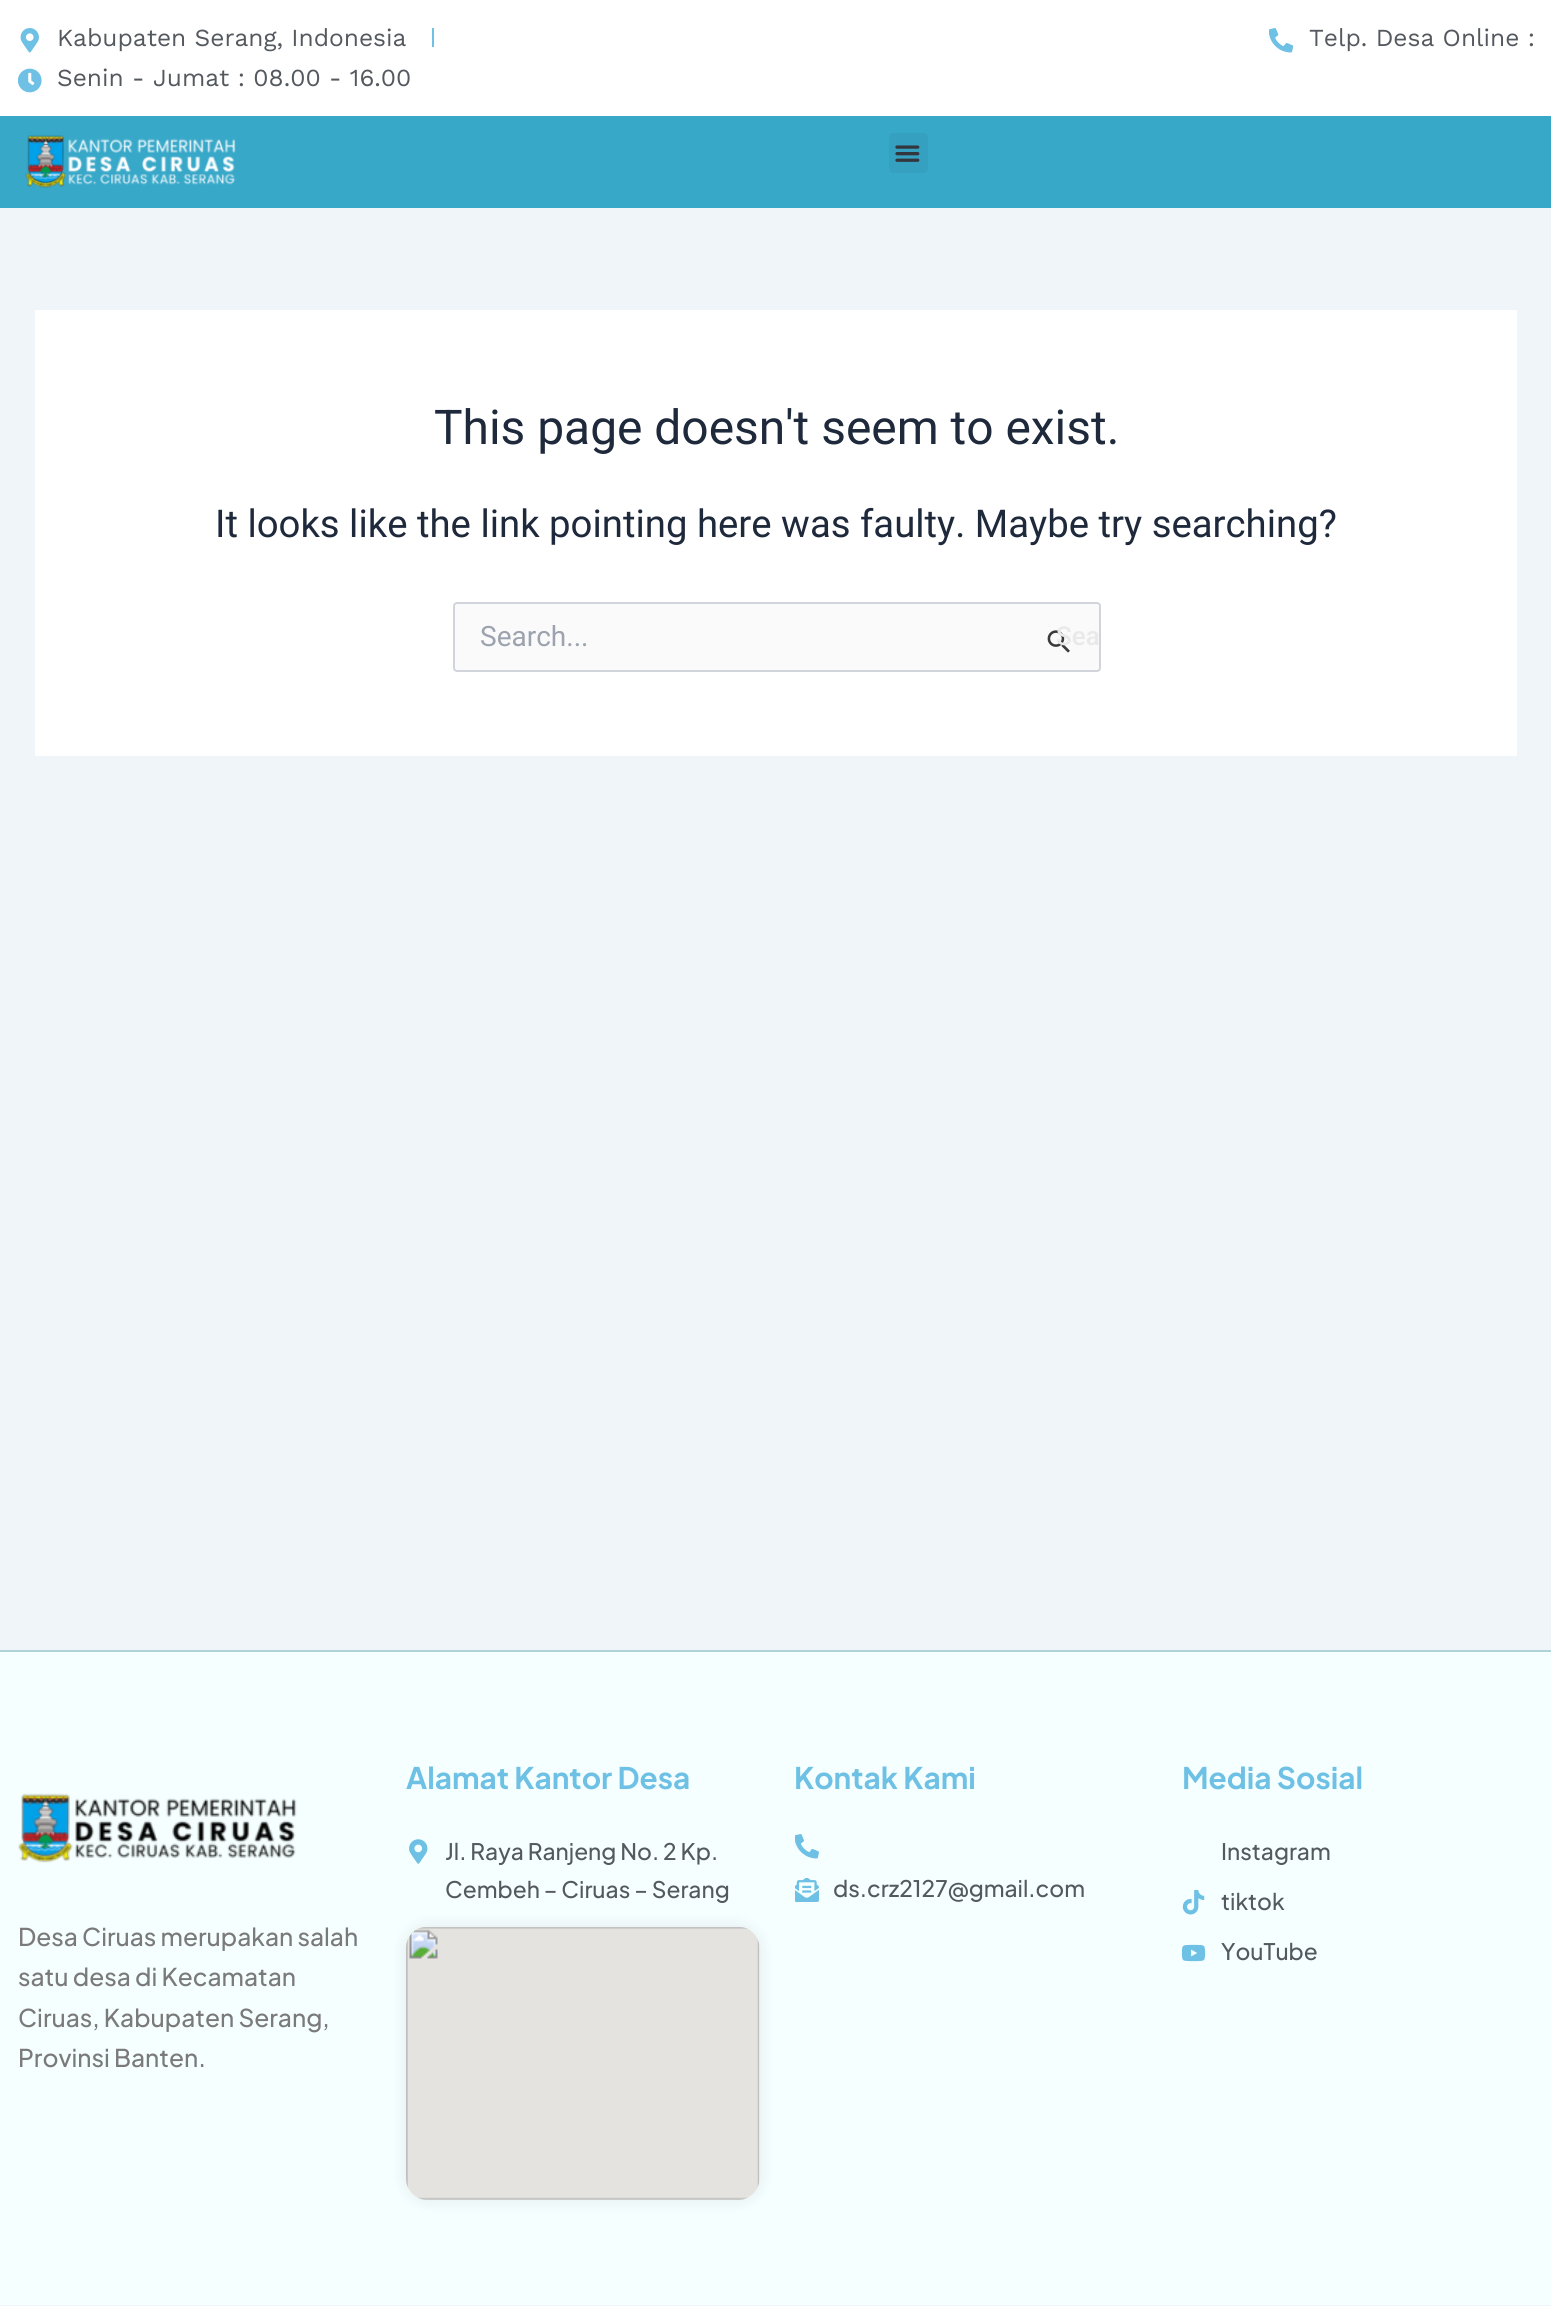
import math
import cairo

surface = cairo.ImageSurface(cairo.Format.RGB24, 1551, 2306)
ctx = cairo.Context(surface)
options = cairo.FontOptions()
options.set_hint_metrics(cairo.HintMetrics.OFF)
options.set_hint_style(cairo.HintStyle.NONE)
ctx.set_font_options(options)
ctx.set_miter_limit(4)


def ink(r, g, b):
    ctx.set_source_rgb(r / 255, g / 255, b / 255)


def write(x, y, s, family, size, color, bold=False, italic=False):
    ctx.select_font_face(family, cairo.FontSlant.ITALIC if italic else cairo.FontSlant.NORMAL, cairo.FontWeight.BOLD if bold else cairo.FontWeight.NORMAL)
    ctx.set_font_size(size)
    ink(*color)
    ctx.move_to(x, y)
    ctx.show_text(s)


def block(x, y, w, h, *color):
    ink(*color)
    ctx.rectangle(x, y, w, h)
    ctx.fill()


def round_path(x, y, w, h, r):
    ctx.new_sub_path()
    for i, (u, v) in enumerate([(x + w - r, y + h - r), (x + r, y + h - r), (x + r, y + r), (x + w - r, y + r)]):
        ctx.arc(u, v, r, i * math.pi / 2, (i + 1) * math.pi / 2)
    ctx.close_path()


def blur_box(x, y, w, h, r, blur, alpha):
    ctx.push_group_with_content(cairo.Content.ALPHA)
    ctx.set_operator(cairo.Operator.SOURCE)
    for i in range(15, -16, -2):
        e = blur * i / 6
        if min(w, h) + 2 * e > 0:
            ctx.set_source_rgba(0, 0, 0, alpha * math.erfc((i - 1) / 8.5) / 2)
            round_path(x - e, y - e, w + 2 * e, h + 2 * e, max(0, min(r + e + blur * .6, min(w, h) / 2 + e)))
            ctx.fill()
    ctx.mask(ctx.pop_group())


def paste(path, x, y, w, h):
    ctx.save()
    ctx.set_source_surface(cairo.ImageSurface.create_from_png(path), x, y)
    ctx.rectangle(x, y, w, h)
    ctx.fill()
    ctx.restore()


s1 = dict(family="Work Sans", size=24.5, color=(84, 89, 95))
s2 = dict(family="Roboto", size=47.9, color=(30, 41, 59))
s3 = dict(family="Roboto", size=38.3, color=(30, 41, 59))
s4 = dict(family="Roboto", size=28, color=(156, 163, 175))
s5 = dict(family="Roboto Medium", size=26, color=(233, 233, 233))
s6 = dict(family="Plus Jakarta Sans", size=29.75, color=(110, 193, 228), bold=True)
s7 = dict(family="Plus Jakarta Sans Medium", size=22.75, color=(84, 89, 95))
s8 = dict(family="Plus Jakarta Sans Medium", size=24.5, color=(122, 122, 122))

ink(240, 245, 250)
ctx.paint()
block(0, 0, 1551, 116, 255, 255, 255)
paste("pic1.png", 20, 28, 19, 25)
write(57, 46, "Kabupaten Serang, Indonesia", **s1)
block(432, 28, 2, 19, 110, 193, 228)
paste("pic2.png", 18, 68, 24, 25)
write(57, 86, "Senin - Jumat : 08.00 - 16.00", **s1)
paste("pic3.png", 1269, 28, 24, 25)
write(1309, 46, "Telp. Desa Online :", **s1)
block(0, 116, 1551, 92, 56, 168, 201)
paste("pic4.png", 25, 135, 211, 53)
ink(53, 160, 191)
round_path(889, 133, 39, 40, 5)
ctx.fill()
paste("pic5.png", 895, 145, 25, 17)
block(35, 310, 1482, 446, 255, 255, 255)
write(434, 444, "This page doesn't seem to exist.", **s2)
write(215, 537, "It looks like the link pointing here was faulty. Maybe try searching?", **s3)
ink(250, 250, 250)
round_path(454, 603, 646, 68, 3)
ctx.fill_preserve()
ink(209, 213, 219)
ctx.stroke()
write(480, 646, "Search...", **s4)
paste("pic6.png", 1047, 630, 23, 23)
write(1056, 645, "Sea", **s5)
block(0, 1650, 1551, 2, 173, 213, 216)
block(0, 1652, 1551, 653, 246, 255, 255)
write(406, 1789, "Alamat Kantor Desa", **s6)
paste("pic7.png", 409, 1839, 19, 25)
write(445, 1860, "Jl. Raya Ranjeng No. 2 Kp.", **s7)
write(445, 1898, "Cembeh – Ciruas – Serang", **s7)
ink(0, 0, 0)
blur_box(406, 1927, 354, 273, 21, 9, 0.08)
paste("pic8.png", 406, 1927, 354, 273)
write(794, 1789, "Kontak Kami", **s6)
paste("pic9.png", 795, 1834, 24, 25)
paste("pic10.png", 795, 1878, 24, 24)
write(833, 1897, "ds.crz2127@gmail.com", **s7)
write(1182, 1789, "Media Sosial", **s6)
write(1221, 1860, "Instagram", **s7)
paste("pic11.png", 1182, 1890, 23, 25)
write(1221, 1910, "tiktok", **s7)
paste("pic12.png", 1181, 1944, 25, 18)
write(1221, 1960, "YouTube", **s7)
paste("pic13.png", 18, 1793, 279, 70)
write(18, 1946, "Desa Ciruas merupakan salah", **s8)
write(18, 1986, "satu desa di Kecamatan", **s8)
write(18, 2027, "Ciruas, Kabupaten Serang,", **s8)
write(18, 2067, "Provinsi Banten.", **s8)
surface.write_to_png("screenshot.png")
